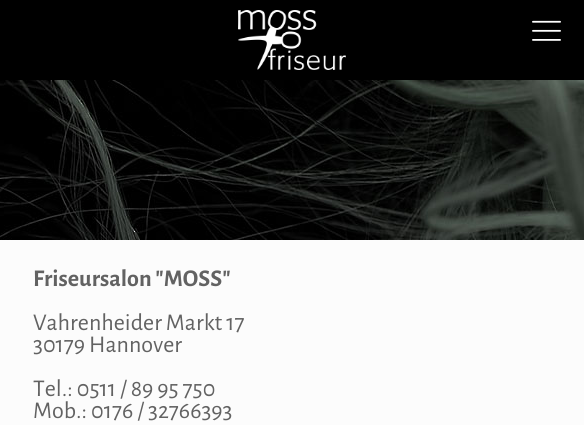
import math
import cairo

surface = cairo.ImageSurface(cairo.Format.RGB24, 584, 425)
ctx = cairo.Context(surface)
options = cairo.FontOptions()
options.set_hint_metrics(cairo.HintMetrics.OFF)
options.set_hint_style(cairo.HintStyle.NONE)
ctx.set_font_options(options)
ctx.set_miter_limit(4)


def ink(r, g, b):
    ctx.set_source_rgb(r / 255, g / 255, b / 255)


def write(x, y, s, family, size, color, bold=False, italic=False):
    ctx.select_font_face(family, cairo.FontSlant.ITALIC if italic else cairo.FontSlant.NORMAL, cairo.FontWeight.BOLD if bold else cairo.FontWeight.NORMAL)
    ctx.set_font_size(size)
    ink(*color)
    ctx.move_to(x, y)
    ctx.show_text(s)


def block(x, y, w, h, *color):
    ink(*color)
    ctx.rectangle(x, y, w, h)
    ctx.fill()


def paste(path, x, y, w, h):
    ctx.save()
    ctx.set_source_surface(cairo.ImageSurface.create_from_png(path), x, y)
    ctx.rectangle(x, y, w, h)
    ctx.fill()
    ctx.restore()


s1 = dict(family="Alegreya Sans", size=24, color=(98, 98, 98), bold=True)
s2 = dict(family="Alegreya Sans", size=24, color=(98, 98, 98))

ink(252, 252, 252)
ctx.paint()
paste("pic1.png", 0, 80, 584, 160)
block(0, 0, 584, 80, 0, 0, 0)
paste("pic2.png", 238, 10, 108, 60)
paste("pic3.png", 532, 20, 29, 21)
write(33, 286, "Friseursalon \"MOSS\"", **s1)
write(33, 330, "Vahrenheider Markt 17", **s2)
write(33, 352, "30179 Hannover", **s2)
write(33, 396, "Tel.: 0511 / 89 95 750", **s2)
write(33, 418, "Mob.: 0176 / 32766393", **s2)
surface.write_to_png("screenshot.png")
